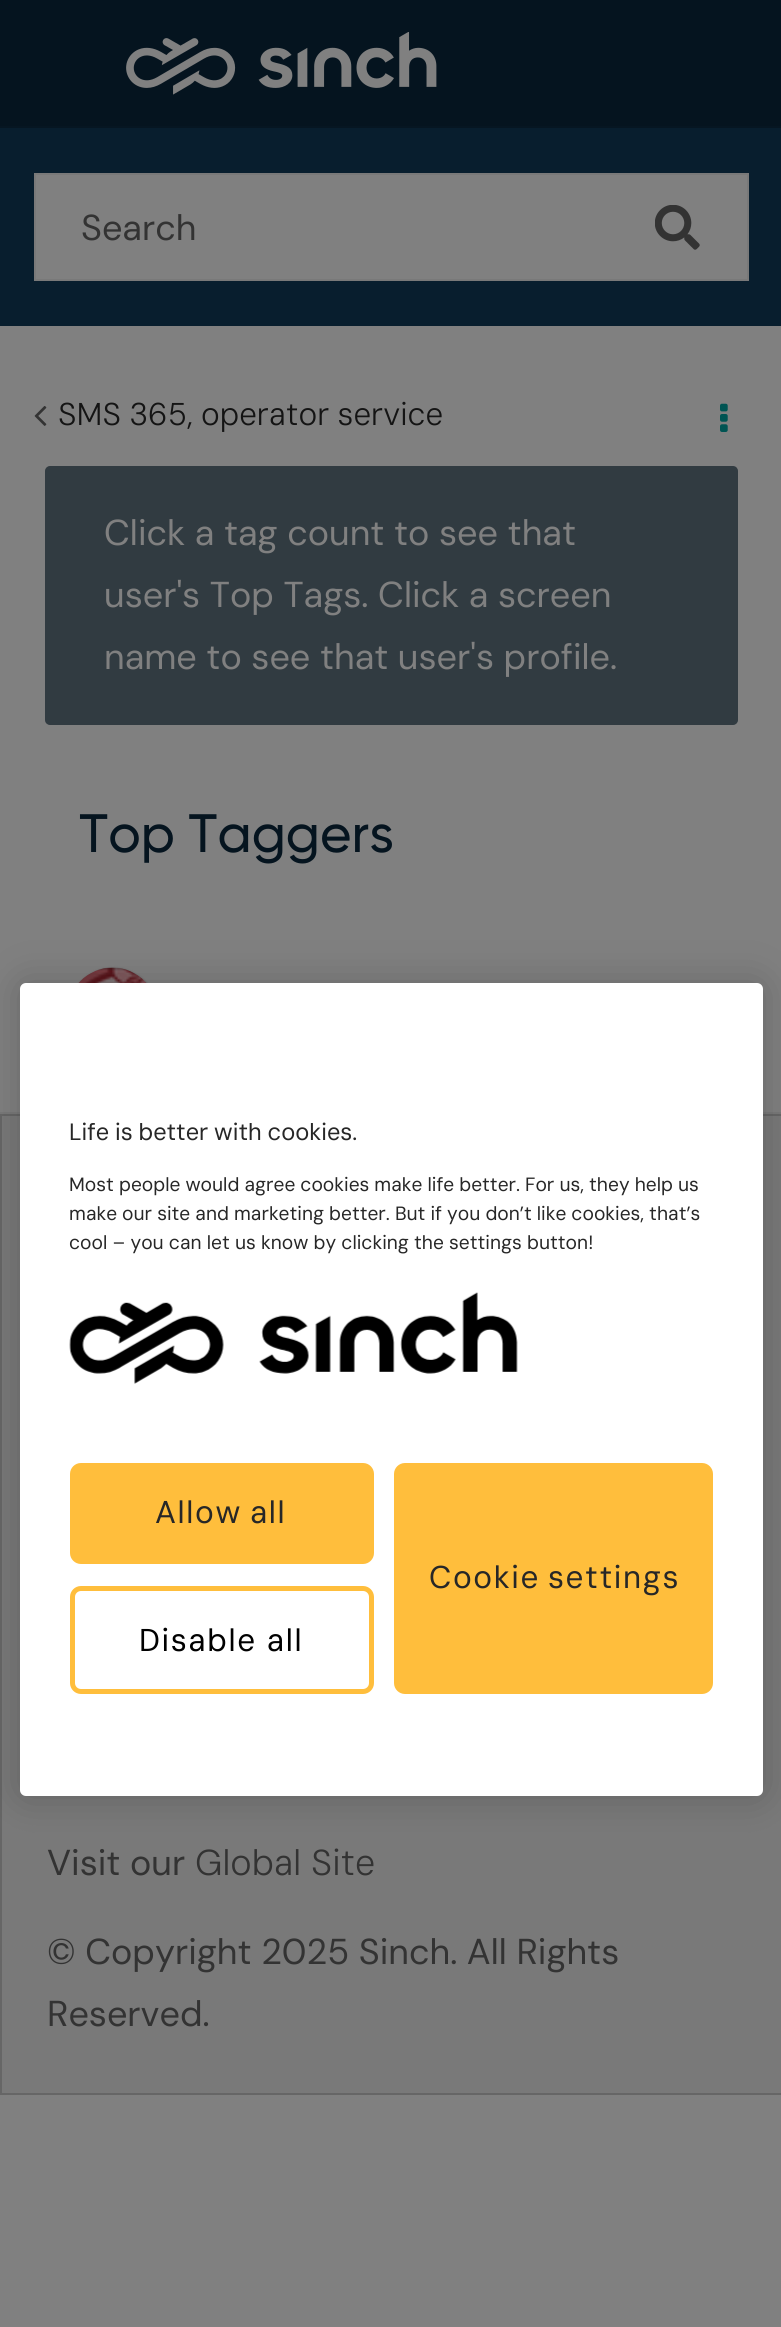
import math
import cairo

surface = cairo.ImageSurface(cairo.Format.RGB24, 781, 2327)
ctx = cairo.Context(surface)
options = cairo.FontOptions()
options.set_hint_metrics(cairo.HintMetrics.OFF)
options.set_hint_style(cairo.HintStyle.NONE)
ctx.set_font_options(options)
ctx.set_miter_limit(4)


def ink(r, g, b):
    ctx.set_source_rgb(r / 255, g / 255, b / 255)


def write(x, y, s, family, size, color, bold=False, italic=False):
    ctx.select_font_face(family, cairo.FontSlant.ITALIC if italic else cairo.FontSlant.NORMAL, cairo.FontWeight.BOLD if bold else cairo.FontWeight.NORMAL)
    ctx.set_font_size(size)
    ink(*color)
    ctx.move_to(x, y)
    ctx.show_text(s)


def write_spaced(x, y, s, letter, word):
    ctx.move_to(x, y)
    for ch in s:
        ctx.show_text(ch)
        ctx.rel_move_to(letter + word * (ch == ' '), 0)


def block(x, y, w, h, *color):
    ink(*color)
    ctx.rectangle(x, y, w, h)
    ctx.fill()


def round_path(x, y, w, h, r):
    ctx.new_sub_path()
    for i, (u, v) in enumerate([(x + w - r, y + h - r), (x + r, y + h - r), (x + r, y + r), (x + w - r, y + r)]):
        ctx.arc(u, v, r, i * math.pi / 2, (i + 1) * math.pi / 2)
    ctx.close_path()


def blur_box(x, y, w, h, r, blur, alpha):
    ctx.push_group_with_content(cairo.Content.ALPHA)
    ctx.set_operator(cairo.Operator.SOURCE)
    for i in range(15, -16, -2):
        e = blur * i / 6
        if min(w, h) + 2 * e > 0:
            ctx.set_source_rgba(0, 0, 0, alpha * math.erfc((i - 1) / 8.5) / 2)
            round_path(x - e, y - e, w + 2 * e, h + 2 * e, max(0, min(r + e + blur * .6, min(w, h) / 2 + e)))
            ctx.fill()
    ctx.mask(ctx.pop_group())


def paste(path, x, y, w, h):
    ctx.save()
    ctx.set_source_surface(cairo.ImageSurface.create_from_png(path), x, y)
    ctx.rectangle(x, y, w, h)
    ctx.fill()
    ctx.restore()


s1 = dict(family="DM Sans", size=36, color=(51, 51, 51))
s2 = dict(family="DM Sans", size=36, color=(128, 128, 128))
s3 = dict(family="Gilroy Medium", size=54, color=(5, 20, 31))
s4 = dict(family="DM Sans Light", size=36, color=(51, 51, 51))
s5 = dict(family="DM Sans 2", size=19.2, color=(39, 39, 39))

ink(128, 128, 128)
ctx.paint()
block(0, 0, 781, 126, 5, 20, 31)
paste("pic1.png", 126, 32, 311, 63)
block(0, 128, 781, 198, 8, 30, 46)
block(0, 126, 781, 2, 6, 22, 34)
ink(128, 128, 128)
ctx.rectangle(35, 174, 713, 106)
ctx.fill_preserve()
ink(121, 121, 121)
ctx.stroke()
write(81, 240, "Search", **s1)
paste("pic2.png", 655, 205, 45, 45)
paste("pic3.png", 34, 406, 13, 20)
ctx.select_font_face("DM Sans Light")
ctx.set_font_size(31.5)
ink(20, 20, 20)
write_spaced(58, 425, "SMS 365, operator service", 0, -0.5)
paste("pic4.png", 720, 403, 8, 29)
ink(49, 59, 65)
round_path(46, 467, 691, 257, 4)
ctx.fill_preserve()
ctx.stroke()
write(104, 545, "Click a tag count to see that", **s2)
write(104, 607, "user's Top Tags. Click a screen", **s2)
write(104, 669, "name to see that user's profile.", **s2)
write(79, 852, "Top Taggers", **s3)
ink(98, 98, 98)
blur_box(68, 968, 90, 90, 45, 1, 1)
paste("pic5.png", 78, 967, 69, 16)
block(0, 1112, 781, 2, 121, 121, 121)
ctx.rectangle(1, 1115, 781, 979)
ctx.fill_preserve()
ink(102, 102, 102)
ctx.stroke()
write(47, 1875, "Visit our", **s1)
write(195, 1875, "Global Site", **s4)
write(47, 1964, "© Copyright 2025 Sinch. All Rights", **s1)
write(47, 2026, "Reserved.", **s1)
ink(0, 0, 0)
blur_box(20, 983, 743, 813, 6, 20, 0.2)
ink(255, 255, 255)
round_path(20, 983, 743, 813, 6)
ctx.fill()
ctx.select_font_face("DM Sans 2")
ctx.set_font_size(23.6)
ink(39, 39, 39)
write_spaced(69, 1140, "Life is better with cookies.", 0, -0.5)
ctx.set_font_size(19.2)
write_spaced(69, 1191, "Most people would agree cookies make life better. For us, they help us", 0, -0.1)
write_spaced(69, 1220, "make our site and marketing better. But if you don’t like cookies, that’s", 0, -0.1)
write(69, 1249, "cool – you can let us know by clicking the settings button!", **s5)
paste("pic6.png", 69, 1292, 449, 92)
ink(255, 190, 60)
round_path(71, 1464, 302, 99, 10)
ctx.fill_preserve()
ctx.stroke()
ctx.set_font_size(31.5)
ink(39, 39, 39)
write_spaced(155, 1523, "Allow all", 1.6, -2)
round_path(72.5, 1588.5, 299, 103, 8.5)
ink(255, 190, 60)
ctx.set_line_width(5)
ctx.stroke()
ink(0, 0, 0)
write_spaced(139, 1651, "Disable all", 1.6, 0)
ink(255, 190, 60)
round_path(395, 1464, 317, 229, 10)
ctx.fill_preserve()
ctx.set_line_width(2)
ctx.stroke()
ink(39, 39, 39)
write_spaced(429, 1588, "Cookie settings", 1.6, -2)
surface.write_to_png("screenshot.png")
